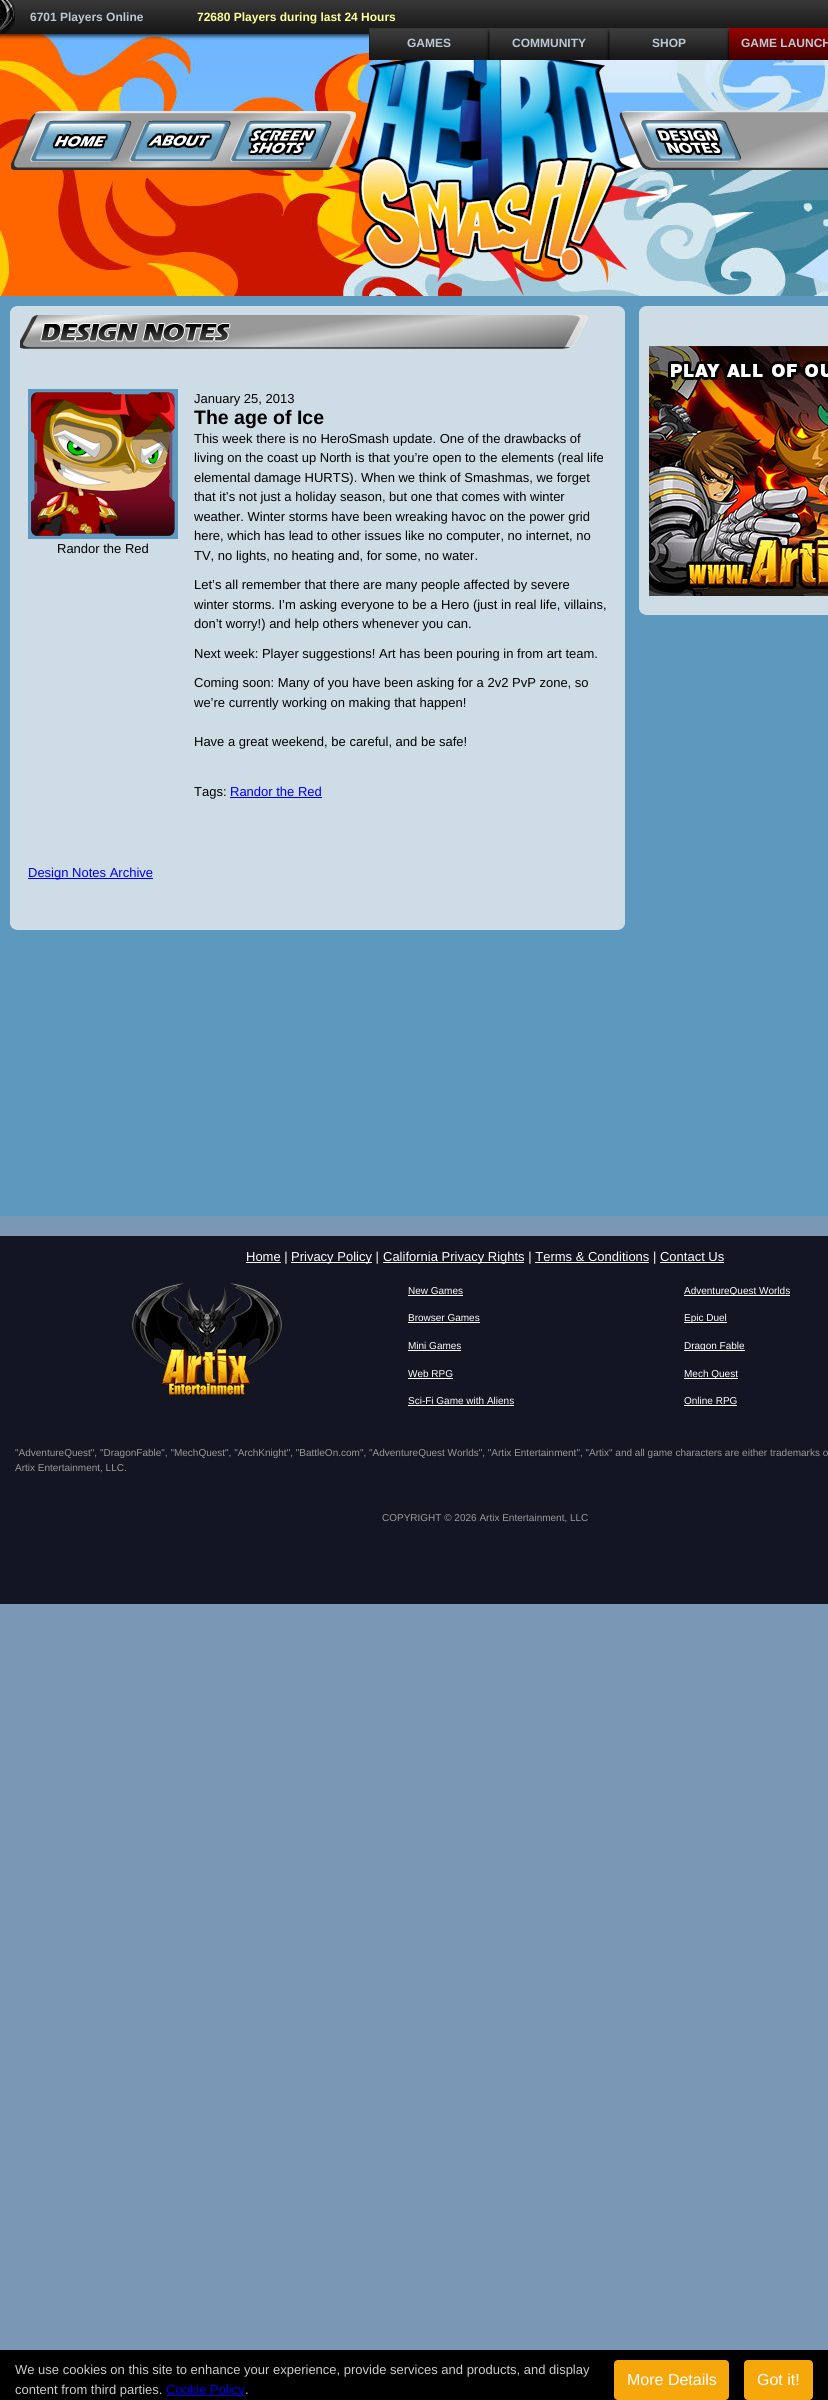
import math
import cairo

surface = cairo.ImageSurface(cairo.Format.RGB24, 828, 2400)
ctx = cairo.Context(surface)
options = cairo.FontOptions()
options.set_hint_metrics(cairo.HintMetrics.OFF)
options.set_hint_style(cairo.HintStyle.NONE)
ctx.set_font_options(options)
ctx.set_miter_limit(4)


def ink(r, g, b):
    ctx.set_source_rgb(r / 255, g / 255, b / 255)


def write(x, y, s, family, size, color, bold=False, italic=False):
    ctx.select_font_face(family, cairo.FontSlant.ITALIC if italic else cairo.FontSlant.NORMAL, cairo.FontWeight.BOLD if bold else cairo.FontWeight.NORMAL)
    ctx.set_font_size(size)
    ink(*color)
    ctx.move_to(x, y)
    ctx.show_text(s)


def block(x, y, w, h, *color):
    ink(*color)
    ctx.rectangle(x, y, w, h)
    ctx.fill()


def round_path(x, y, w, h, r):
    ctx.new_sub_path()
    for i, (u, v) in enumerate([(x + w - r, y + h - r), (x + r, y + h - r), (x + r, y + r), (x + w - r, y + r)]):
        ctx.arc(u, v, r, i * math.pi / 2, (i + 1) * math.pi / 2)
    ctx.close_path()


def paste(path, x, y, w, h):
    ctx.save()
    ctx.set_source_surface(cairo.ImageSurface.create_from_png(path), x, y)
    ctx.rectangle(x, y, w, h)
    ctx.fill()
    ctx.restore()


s1 = dict(family="Liberation Sans", size=12, color=(187, 200, 213), bold=True)
s2 = dict(family="Liberation Sans", size=12, color=(255, 255, 153), bold=True)
s3 = dict(family="Liberation Sans", size=13, color=(0, 0, 0))
s4 = dict(family="Liberation Sans", size=19.5, color=(0, 0, 0), bold=True)
s5 = dict(family="Liberation Sans", size=13, color=(0, 0, 238))
s6 = dict(family="Liberation Sans", size=13, color=(255, 255, 255))
s7 = dict(family="Liberation Sans", size=10, color=(255, 255, 255))
s8 = dict(family="Liberation Sans", size=10, color=(153, 153, 153))
s9 = dict(family="Liberation Sans", size=13, color=(204, 204, 204))
s10 = dict(family="Liberation Sans", size=16, color=(255, 255, 255))

ink(122, 152, 181)
ctx.paint()
paste("pic1.png", 0, 34, 828, 262)
paste("pic2.png", 0, 0, 828, 40)
paste("pic3.png", 0, 0, 15, 34)
write(30, 21, "6701 Players Online", **s1)
write(197, 21, "72680 Players during last 24 Hours", **s2)
paste("pic4.png", 369, 28, 120, 32)
write(407, 47, "GAMES", **s1)
paste("pic4.png", 489, 28, 120, 32)
write(512, 47, "COMMUNITY", **s1)
paste("pic4.png", 609, 28, 120, 32)
write(652, 47, "SHOP", **s1)
gradient = cairo.LinearGradient(794, 28, 794, 60)
gradient.add_color_stop_rgba(0, 0.592, 0, 0, 1)
gradient.add_color_stop_rgba(1, 0.247, 0, 0, 1)
ctx.set_source(gradient)
ctx.rectangle(729, 28, 99, 32)
ctx.fill()
write(741, 47, "GAME LAUNCH", **s1)
paste("pic5.png", 323, 60, 338, 236)
paste("pic6.png", 11, 111, 817, 59)
paste("pic7.png", 30, 120, 102, 45)
paste("pic8.png", 129, 120, 102, 45)
paste("pic9.png", 230, 120, 102, 45)
paste("pic10.png", 640, 120, 101, 42)
block(0, 296, 828, 920, 93, 153, 190)
paste("pic11.png", 10, 306, 615, 7)
block(10, 313, 615, 610, 206, 220, 230)
paste("pic12.png", 20, 315, 569, 34)
paste("pic13.png", 28, 389, 150, 150)
write(57, 553, "Randor the Red", **s3)
write(194, 403, "January 25, 2013", **s3)
write(194, 424, "The age of Ice", **s4)
write(194, 443, "This week there is no HeroSmash update. One of the drawbacks of", **s3)
write(194, 462, "living on the coast up North is that you’re open to the elements (real life", **s3)
write(194, 482, "elemental damage HURTS). When we think of Smashmas, we forget", **s3)
write(194, 501, "that it’s not just a holiday season, but one that comes with winter", **s3)
write(194, 521, "weather. Winter storms have been wreaking havoc on the power grid", **s3)
write(194, 540, "here, which has lead to other issues like no computer, no internet, no", **s3)
write(194, 560, "TV, no lights, no heating and, for some, no water.", **s3)
write(194, 589, "Let’s all remember that there are many people affected by severe", **s3)
write(194, 609, "winter storms. I’m asking everyone to be a Hero (just in real life, villains,", **s3)
write(194, 628, "don’t worry!) and help others whenever you can.", **s3)
write(194, 658, "Next week: Player suggestions! Art has been pouring in from art team.", **s3)
write(194, 687, "Coming soon: Many of you have been asking for a 2v2 PvP zone, so", **s3)
write(194, 707, "we’re currently working on making that happen!", **s3)
write(194, 746, "Have a great weekend, be careful, and be safe!", **s3)
write(194, 796, "Tags:", **s3)
write(230, 796, "Randor the Red", **s5)
block(230, 797, 92, 1, 0, 0, 238)
block(28, 878, 125, 1, 0, 0, 238)
write(28, 877, "Design Notes Archive", **s5)
paste("pic14.png", 10, 923, 615, 7)
paste("pic15.png", 639, 306, 189, 7)
block(639, 313, 189, 295, 206, 220, 230)
paste("pic16.png", 649, 346, 179, 250)
paste("pic17.png", 639, 608, 189, 7)
block(0, 1236, 828, 368, 19, 21, 34)
block(246, 1262, 35, 1, 255, 255, 255)
write(246, 1261, "Home |", **s6)
block(291, 1262, 81, 1, 255, 255, 255)
write(291, 1261, "Privacy Policy |", **s6)
block(383, 1262, 141, 1, 255, 255, 255)
write(383, 1261, "California Privacy Rights | Terms & Conditions | Contact Us", **s6)
block(535, 1262, 114, 1, 255, 255, 255)
block(660, 1262, 64, 1, 255, 255, 255)
paste("pic18.png", 132, 1283, 150, 112)
write(408, 1294, "New Games", **s7)
block(408, 1295, 55, 1, 255, 255, 255)
block(684, 1295, 106, 1, 255, 255, 255)
write(684, 1294, "AdventureQuest Worlds", **s7)
write(408, 1321, "Browser Games", **s7)
block(408, 1322, 72, 1, 255, 255, 255)
block(684, 1322, 43, 1, 255, 255, 255)
write(684, 1321, "Epic Duel", **s7)
write(408, 1349, "Mini Games", **s7)
block(408, 1350, 53, 1, 255, 255, 255)
block(684, 1350, 61, 1, 255, 255, 255)
write(684, 1349, "Dragon Fable", **s7)
write(408, 1377, "Web RPG", **s7)
block(408, 1378, 45, 1, 255, 255, 255)
block(684, 1378, 54, 1, 255, 255, 255)
write(684, 1377, "Mech Quest", **s7)
write(408, 1404, "Sci-Fi Game with Aliens", **s7)
block(408, 1405, 106, 1, 255, 255, 255)
write(684, 1404, "Online RPG", **s7)
block(684, 1405, 53, 1, 255, 255, 255)
write(15, 1456, "\"AdventureQuest\", \"DragonFable\", \"MechQuest\", \"ArchKnight\", \"BattleOn.com\", \"AdventureQuest Worlds\", \"Artix Entertainment\", \"Artix\" and all game characters are either trademarks o", **s8)
write(15, 1471, "Artix Entertainment, LLC.", **s8)
write(382, 1521, "COPYRIGHT © 2026 Artix Entertainment, LLC", **s8)
block(0, 2350, 828, 50, 0, 0, 0)
write(15, 2374, "We use cookies on this site to enhance your experience, provide services and products, and display", **s9)
write(15, 2394, "content from third parties.", **s9)
block(166, 2395, 79, 1, 0, 0, 238)
write(166, 2394, "Cookie Policy", **s5)
write(245, 2394, ".", **s9)
ink(246, 167, 12)
round_path(614, 2360, 115, 40, 4)
ctx.fill()
write(627, 2385, "More Details", **s10)
ink(246, 167, 12)
round_path(744, 2360, 69, 40, 4)
ctx.fill()
write(757, 2385, "Got it!", **s10)
surface.write_to_png("screenshot.png")
